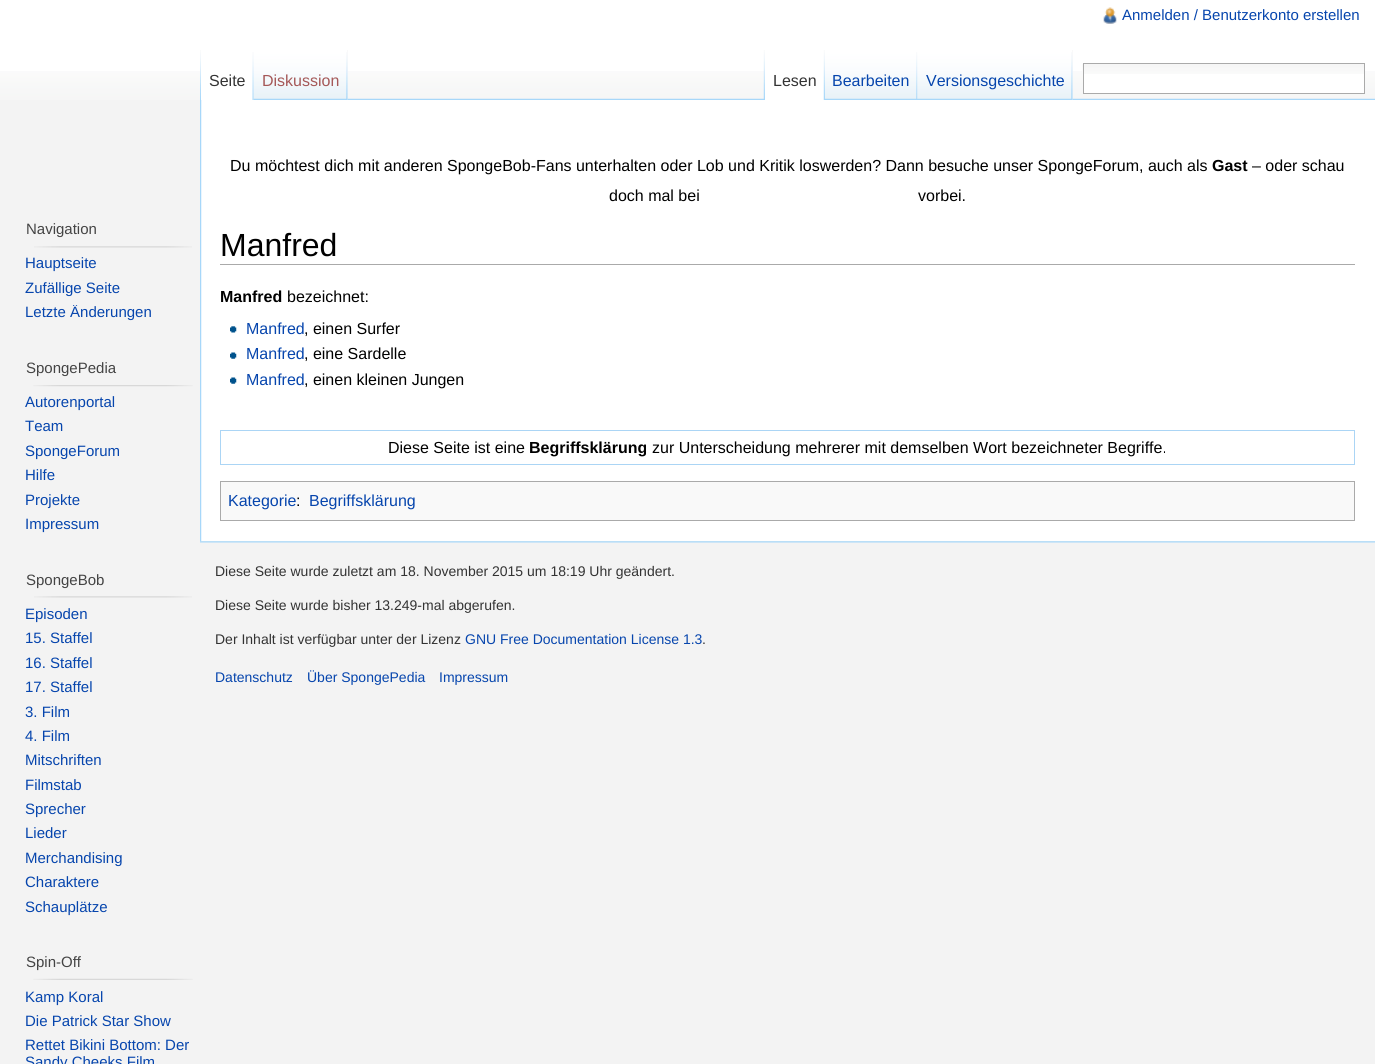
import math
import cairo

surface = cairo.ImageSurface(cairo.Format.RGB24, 1375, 1064)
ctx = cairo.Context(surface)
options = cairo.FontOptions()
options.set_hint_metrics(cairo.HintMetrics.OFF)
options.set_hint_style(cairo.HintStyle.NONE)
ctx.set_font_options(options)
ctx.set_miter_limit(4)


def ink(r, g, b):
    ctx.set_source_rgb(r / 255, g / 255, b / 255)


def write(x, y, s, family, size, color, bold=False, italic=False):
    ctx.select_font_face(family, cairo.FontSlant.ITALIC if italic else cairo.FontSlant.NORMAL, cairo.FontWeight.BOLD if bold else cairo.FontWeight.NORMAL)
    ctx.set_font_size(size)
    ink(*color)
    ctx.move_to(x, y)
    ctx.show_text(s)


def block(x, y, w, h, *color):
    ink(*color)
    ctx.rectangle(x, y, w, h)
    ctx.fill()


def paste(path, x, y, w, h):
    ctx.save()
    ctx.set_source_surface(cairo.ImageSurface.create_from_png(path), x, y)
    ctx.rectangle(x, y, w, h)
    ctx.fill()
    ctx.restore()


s1 = dict(family="Liberation Sans", size=15, color=(6, 69, 173))
s2 = dict(family="Liberation Sans", size=16, color=(51, 51, 51))
s3 = dict(family="Liberation Sans", size=16, color=(165, 88, 88))
s4 = dict(family="Liberation Sans", size=16, color=(6, 69, 173))
s5 = dict(family="Liberation Sans", size=15, color=(68, 68, 68))
s6 = dict(family="Liberation Sans", size=16, color=(0, 0, 0))
s7 = dict(family="Liberation Sans", size=16, color=(0, 0, 0), bold=True)
s8 = dict(family="Liberation Sans", size=32, color=(0, 0, 0))
s9 = dict(family="Liberation Sans", size=14, color=(51, 51, 51))
s10 = dict(family="Liberation Sans", size=14, color=(6, 69, 173))

ink(243, 243, 243)
ctx.paint()
block(0, 0, 1375, 71, 255, 255, 255)
paste("pic1.png", 0, 71, 1375, 29)
paste("pic2.png", 1103, 7, 14, 17)
write(1122, 20, "Anmelden / Benutzerkonto erstellen", **s1)
paste("pic12.png", 200, 98, 1175, 2)
paste("pic3.png", 200, 50, 1, 49)
block(201, 71, 53, 29, 255, 255, 255)
paste("pic4.png", 252, 52, 2, 48)
write(209, 86, "Seite", **s2)
block(347, 50, 1, 50, 243, 243, 243)
paste("pic5.png", 253, 50, 95, 50)
paste("pic6.png", 346, 52, 2, 48)
write(262, 86, "Diskussion", **s3)
paste("pic7.png", 763, 50, 2, 49)
block(765, 71, 59, 29, 255, 255, 255)
paste("pic8.png", 823, 50, 2, 50)
write(773, 86, "Lesen", **s2)
paste("pic9.png", 825, 50, 93, 50)
paste("pic6.png", 916, 52, 2, 48)
write(832, 86, "Bearbeiten", **s4)
block(1072, 50, 1, 50, 243, 243, 243)
paste("pic10.png", 917, 50, 156, 50)
paste("pic6.png", 1071, 52, 2, 48)
write(926, 86, "Versionsgeschichte", **s4)
block(1084, 74, 280, 19, 255, 255, 255)
paste("pic11.png", 1082, 64, 282, 10)
ctx.rectangle(1083.5, 63.5, 281, 30)
ink(170, 170, 170)
ctx.set_line_width(1)
ctx.stroke()
write(26, 234, "Navigation", **s5)
paste("pic13.png", 34, 246, 158, 2)
write(25, 268, "Hauptseite", **s1)
write(25, 293, "Zufällige Seite", **s1)
ctx.save()
ctx.rectangle(25, 305, 175, 24)
ctx.clip()
write(25, 317, "Letzte Änderungen", **s1)
ctx.restore()
write(26, 373, "SpongePedia", **s5)
paste("pic14.png", 33, 385, 160, 2)
write(25, 407, "Autorenportal", **s1)
write(25, 431, "Team", **s1)
write(25, 456, "SpongeForum", **s1)
write(25, 480, "Hilfe", **s1)
write(25, 505, "Projekte", **s1)
write(25, 529, "Impressum", **s1)
write(26, 585, "SpongeBob", **s5)
paste("pic13.png", 34, 596, 158, 2)
write(25, 619, "Episoden", **s1)
write(25, 643, "15. Staffel", **s1)
write(25, 668, "16. Staffel", **s1)
write(25, 692, "17. Staffel", **s1)
write(25, 717, "3. Film", **s1)
write(25, 741, "4. Film", **s1)
write(25, 765, "Mitschriften", **s1)
write(25, 790, "Filmstab", **s1)
write(25, 814, "Sprecher", **s1)
write(25, 838, "Lieder", **s1)
write(25, 863, "Merchandising", **s1)
write(25, 887, "Charaktere", **s1)
write(25, 912, "Schauplätze", **s1)
write(26, 967, "Spin-Off", **s5)
paste("pic15.png", 33, 978, 160, 2)
write(25, 1002, "Kamp Koral", **s1)
write(25, 1026, "Die Patrick Star Show", **s1)
write(25, 1050, "Rettet Bikini Bottom: Der", **s1)
write(25, 1067, "Sandy Cheeks Film", **s1)
block(201, 100, 1174, 441, 255, 255, 255)
paste("pic16.png", 200, 100, 2, 442)
write(230, 171, "Du möchtest dich mit anderen SpongeBob-Fans unterhalten oder Lob und Kritik loswerden? Dann besuche unser SpongeForum, auch als", **s6)
write(1212, 171, "Gast", **s7)
write(1252, 171, "– oder schau", **s6)
write(609, 201, "doch mal bei", **s6)
write(918, 201, "vorbei.", **s6)
block(220, 264, 1135, 1, 170, 170, 170)
write(220, 256, "Manfred", **s8)
write(220, 302, "Manfred", **s7)
write(287, 302, "bezeichnet:", **s6)
paste("pic17.png", 230, 326, 7, 7)
write(246, 334, "Manfred", **s4)
write(304, 334, ", einen Surfer", **s6)
paste("pic18.png", 230, 352, 7, 7)
write(246, 359, "Manfred", **s4)
write(304, 359, ", eine Sardelle", **s6)
paste("pic18.png", 230, 377, 7, 7)
write(246, 385, "Manfred", **s4)
write(304, 385, ", einen kleinen Jungen", **s6)
ctx.rectangle(220.5, 430.5, 1134, 34)
ink(171, 213, 245)
ctx.stroke()
write(388, 453, "Diese Seite ist eine", **s6)
write(529, 453, "Begriffsklärung", **s7)
write(652, 453, "zur Unterscheidung mehrerer mit demselben Wort bezeichneter Begriffe.", **s6)
ink(249, 249, 249)
ctx.rectangle(220.5, 481.5, 1134, 39)
ctx.fill_preserve()
ink(170, 170, 170)
ctx.stroke()
write(228, 506, "Kategorie", **s4)
write(296, 506, ":", **s6)
write(309, 506, "Begriffsklärung", **s4)
paste("pic19.png", 200, 541, 1175, 2)
write(215, 576, "Diese Seite wurde zuletzt am 18. November 2015 um 18:19 Uhr geändert.", **s9)
write(215, 610, "Diese Seite wurde bisher 13.249-mal abgerufen.", **s9)
write(215, 644, "Der Inhalt ist verfügbar unter der Lizenz", **s9)
write(465, 644, "GNU Free Documentation License 1.3", **s10)
write(702, 644, ".", **s9)
write(215, 682, "Datenschutz", **s10)
write(307, 682, "Über SpongePedia", **s10)
write(439, 682, "Impressum", **s10)
surface.write_to_png("screenshot.png")
